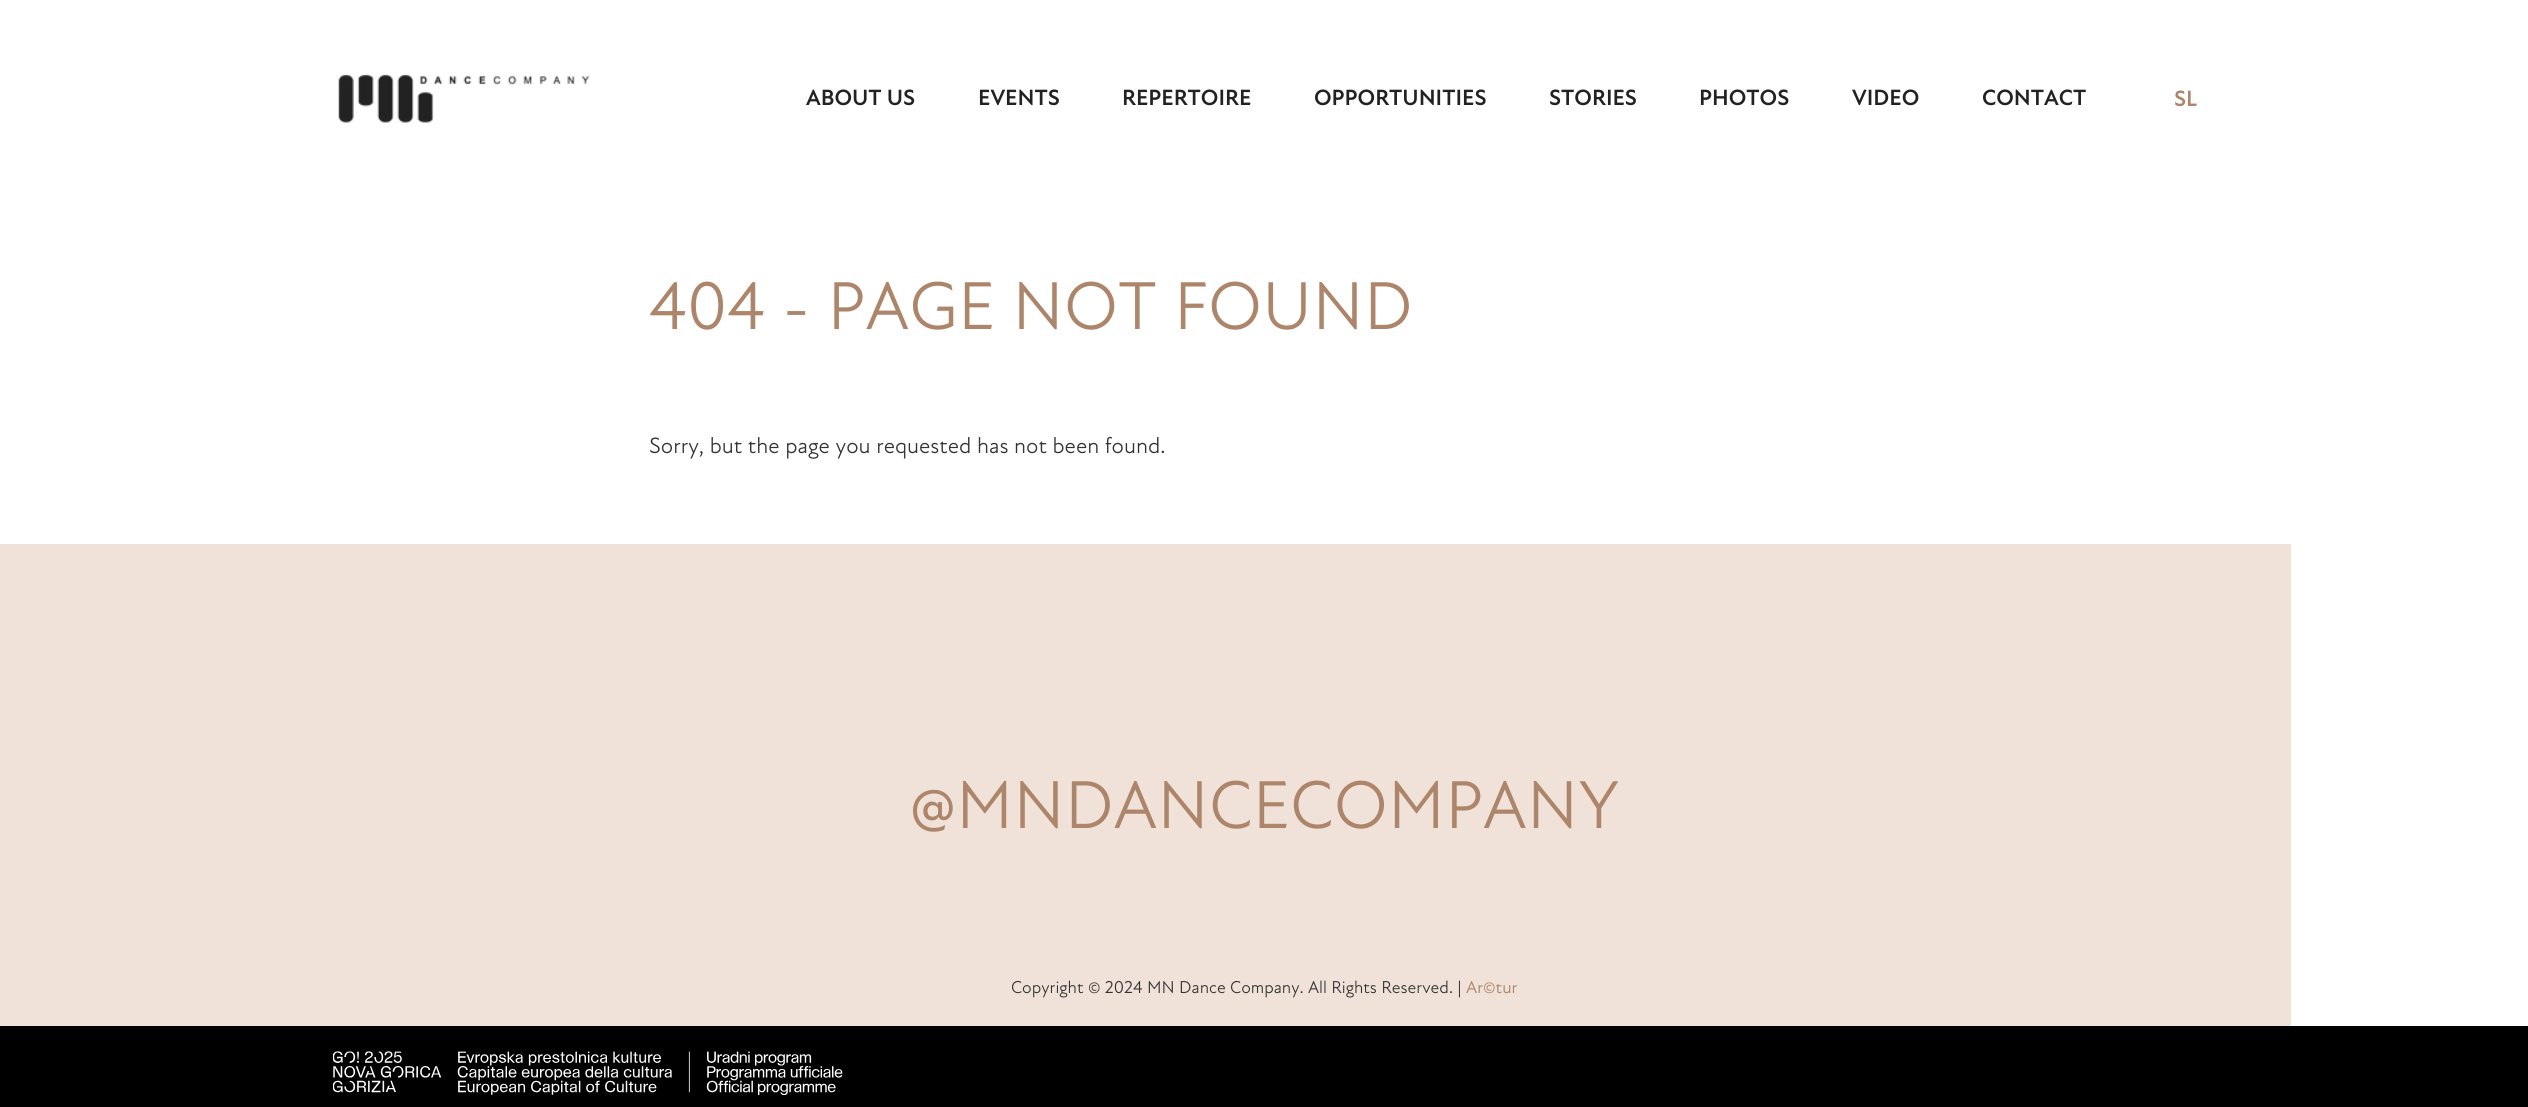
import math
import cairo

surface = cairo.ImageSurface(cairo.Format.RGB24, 2528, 1107)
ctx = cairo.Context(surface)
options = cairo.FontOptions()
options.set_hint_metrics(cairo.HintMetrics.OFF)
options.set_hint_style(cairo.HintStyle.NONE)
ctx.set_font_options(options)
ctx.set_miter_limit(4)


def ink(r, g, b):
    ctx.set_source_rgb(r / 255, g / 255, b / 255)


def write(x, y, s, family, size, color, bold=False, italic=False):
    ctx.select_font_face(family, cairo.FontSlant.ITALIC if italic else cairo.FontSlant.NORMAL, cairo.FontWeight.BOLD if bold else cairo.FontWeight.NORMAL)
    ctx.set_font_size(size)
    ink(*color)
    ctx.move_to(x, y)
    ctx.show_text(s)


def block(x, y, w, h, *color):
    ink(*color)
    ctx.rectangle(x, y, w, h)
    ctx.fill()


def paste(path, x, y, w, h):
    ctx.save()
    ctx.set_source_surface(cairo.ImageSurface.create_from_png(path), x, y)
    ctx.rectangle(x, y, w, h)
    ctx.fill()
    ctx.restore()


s1 = dict(family="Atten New", size=22.5, color=(34, 34, 34), bold=True)
s2 = dict(family="Atten New", size=22.5, color=(173, 133, 106), bold=True)
s3 = dict(family="Atten New", size=68.75, color=(173, 133, 106))
s4 = dict(family="Atten New", size=22.5, color=(51, 51, 51))
s5 = dict(family="Atten New", size=17.5, color=(51, 51, 51))
s6 = dict(family="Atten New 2", size=17.5, color=(173, 133, 106))

ink(255, 255, 255)
ctx.paint()
paste("pic1.png", 338, 74, 251, 49)
write(806, 105, "ABOUT US", **s1)
write(978, 105, "EVENTS", **s1)
write(1122, 105, "REPERTOIRE", **s1)
write(1314, 105, "OPPORTUNITIES", **s1)
write(1549, 105, "STORIES", **s1)
write(1699, 105, "PHOTOS", **s1)
write(1852, 105, "VIDEO", **s1)
write(1982, 105, "CONTACT", **s1)
write(2174, 106, "SL", **s2)
write(649, 329, "404 - PAGE NOT FOUND", **s3)
write(649, 453, "Sorry, but the page you requested has not been found.", **s4)
block(0, 544, 2291, 482, 240, 226, 217)
write(909, 828, "@MNDANCECOMPANY", **s3)
write(1011, 993, "Copyright © 2024 MN Dance Company. All Rights Reserved. |", **s5)
write(1466, 993, "Ar©tur", **s6)
block(0, 1026, 2528, 81, 0, 0, 0)
paste("pic2.png", 333, 1051, 510, 44)
surface.write_to_png("screenshot.png")
